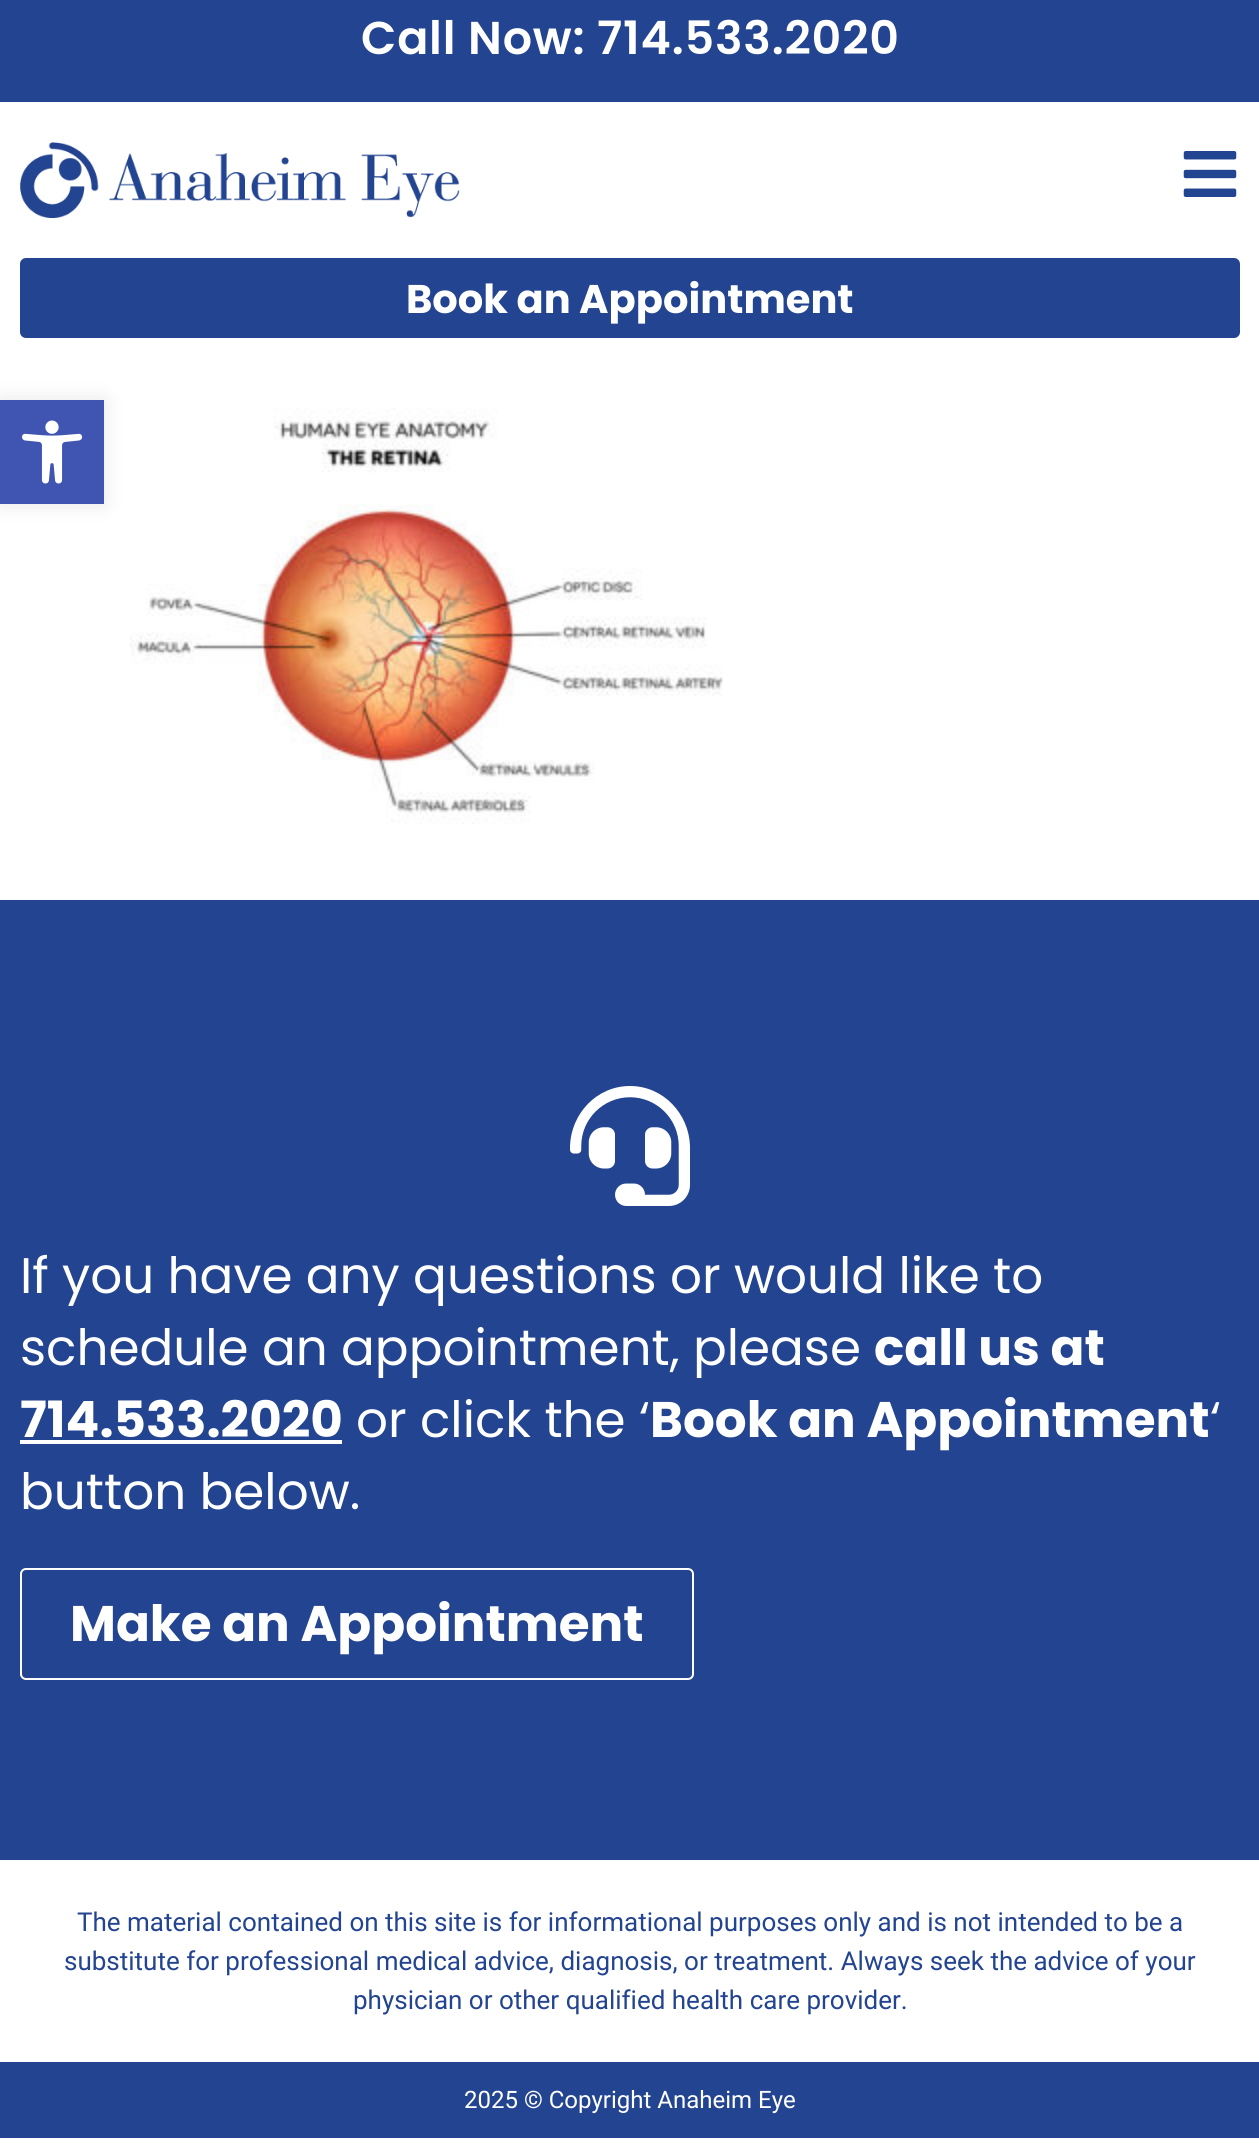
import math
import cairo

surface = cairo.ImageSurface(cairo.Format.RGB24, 1259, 2149)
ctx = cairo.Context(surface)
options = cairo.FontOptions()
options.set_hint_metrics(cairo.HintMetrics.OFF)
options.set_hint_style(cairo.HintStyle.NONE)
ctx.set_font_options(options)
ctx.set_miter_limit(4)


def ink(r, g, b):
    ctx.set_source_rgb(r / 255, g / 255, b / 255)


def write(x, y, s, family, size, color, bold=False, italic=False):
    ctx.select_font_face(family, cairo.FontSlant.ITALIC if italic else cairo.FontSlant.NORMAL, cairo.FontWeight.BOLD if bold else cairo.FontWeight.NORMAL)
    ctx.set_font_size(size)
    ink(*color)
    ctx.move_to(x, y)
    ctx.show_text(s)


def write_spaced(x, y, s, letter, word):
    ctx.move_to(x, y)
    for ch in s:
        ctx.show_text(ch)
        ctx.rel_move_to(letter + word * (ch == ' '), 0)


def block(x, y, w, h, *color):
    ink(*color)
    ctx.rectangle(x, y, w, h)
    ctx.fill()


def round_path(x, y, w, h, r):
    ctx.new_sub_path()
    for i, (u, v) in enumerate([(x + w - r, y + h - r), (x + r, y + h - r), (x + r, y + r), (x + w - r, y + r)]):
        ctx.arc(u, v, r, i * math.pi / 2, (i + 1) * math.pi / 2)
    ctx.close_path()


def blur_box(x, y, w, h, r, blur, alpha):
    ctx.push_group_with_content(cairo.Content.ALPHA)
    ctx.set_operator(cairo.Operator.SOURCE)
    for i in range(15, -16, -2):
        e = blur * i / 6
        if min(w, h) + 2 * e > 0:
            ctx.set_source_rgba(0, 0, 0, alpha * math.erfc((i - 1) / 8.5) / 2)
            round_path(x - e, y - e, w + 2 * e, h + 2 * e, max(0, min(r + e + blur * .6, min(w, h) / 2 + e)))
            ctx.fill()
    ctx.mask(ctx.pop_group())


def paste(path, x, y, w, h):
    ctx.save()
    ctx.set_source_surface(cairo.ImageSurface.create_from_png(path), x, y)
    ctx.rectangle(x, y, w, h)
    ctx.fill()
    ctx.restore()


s1 = dict(family="Poppins", size=40, color=(255, 255, 255), bold=True)
s2 = dict(family="Poppins", size=50, color=(255, 255, 255))
s3 = dict(family="Poppins", size=50, color=(255, 255, 255), bold=True)
s4 = dict(family="Roboto", size=26, color=(35, 68, 144))
s5 = dict(family="Roboto", size=24, color=(255, 255, 255))

ink(255, 255, 255)
ctx.paint()
block(0, 0, 1259, 102, 35, 68, 144)
ctx.select_font_face("Poppins SemiBold")
ctx.set_font_size(46)
ink(255, 255, 255)
write_spaced(361, 54, "Call Now: 714.533.2020", 0.8, 0)
paste("pic1.png", 20, 142, 440, 76)
paste("pic2.png", 1183, 151, 54, 46)
ink(35, 68, 144)
round_path(20, 258, 1220, 80, 6)
ctx.fill()
write(406, 313, "Book an Appointment", **s1)
paste("pic4.png", 130, 408, 593, 416)
ink(0, 0, 0)
blur_box(0, 400, 104, 104, 0, 10, 0.1)
block(0, 400, 104, 104, 64, 84, 178)
paste("pic3.png", 22, 420, 61, 64)
block(0, 900, 1259, 960, 35, 68, 144)
paste("pic5.png", 570, 1086, 120, 120)
write(20, 1293, "If you have any questions or would like to", **s2)
write(20, 1365, "schedule an appointment, please", **s2)
write(874, 1365, "call us at", **s3)
write(20, 1437, "714.533.2020", **s3)
block(20, 1440, 322, 4, 255, 255, 255)
write(356, 1437, "or click the ‘", **s2)
write(650, 1437, "Book an Appointment", **s3)
write(1210, 1437, "‘", **s2)
write(20, 1509, "button below.", **s2)
round_path(21, 1569, 672, 110, 5)
ctx.stroke()
write(70, 1641, "Make an Appointment", **s3)
write(77, 1931, "The material contained on this site is for informational purposes only and is not intended to be a", **s4)
write(64, 1970, "substitute for professional medical advice, diagnosis, or treatment. Always seek the advice of your", **s4)
write(353, 2009, "physician or other qualified health care provider.", **s4)
block(0, 2062, 1259, 76, 35, 68, 144)
write(464, 2108, "2025 © Copyright Anaheim Eye", **s5)
surface.write_to_png("screenshot.png")
